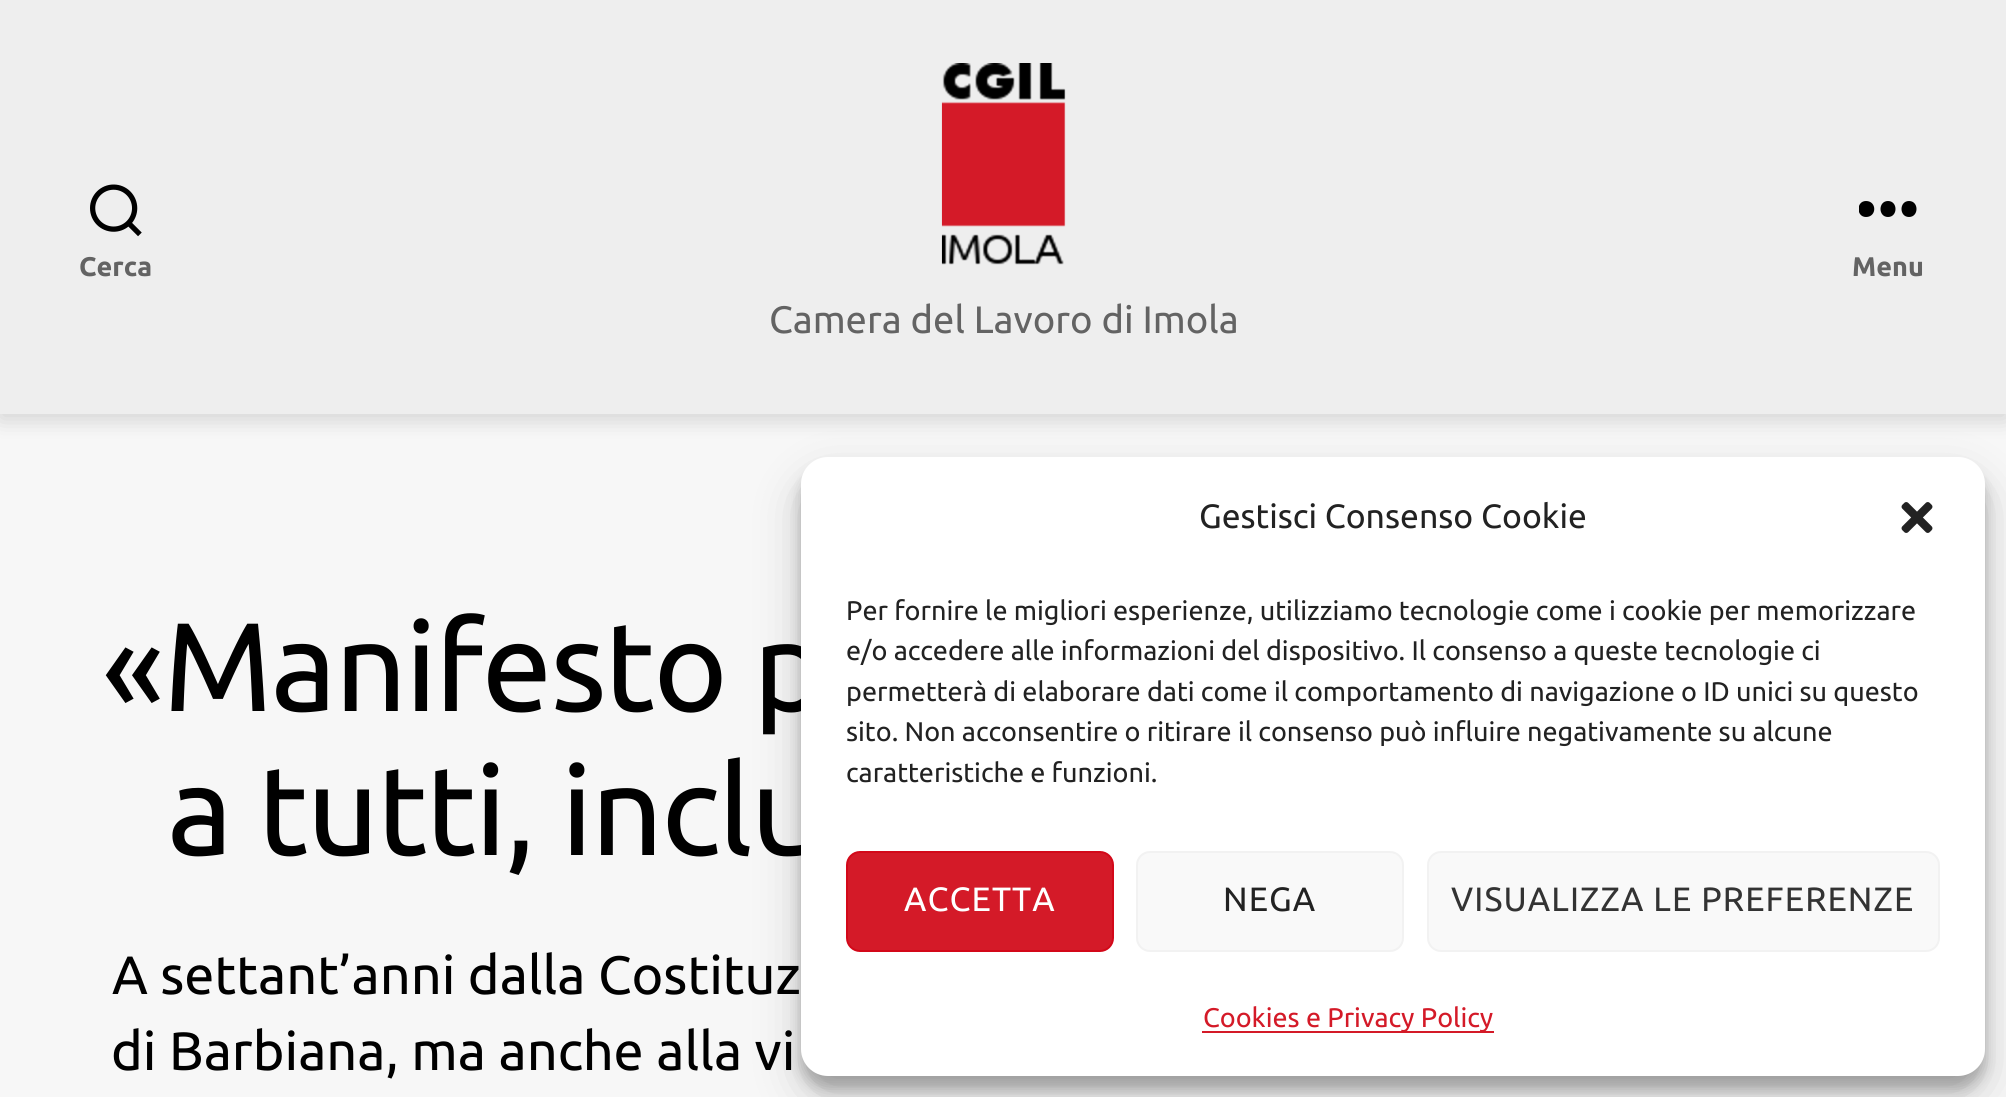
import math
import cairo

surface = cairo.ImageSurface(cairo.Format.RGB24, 2006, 1097)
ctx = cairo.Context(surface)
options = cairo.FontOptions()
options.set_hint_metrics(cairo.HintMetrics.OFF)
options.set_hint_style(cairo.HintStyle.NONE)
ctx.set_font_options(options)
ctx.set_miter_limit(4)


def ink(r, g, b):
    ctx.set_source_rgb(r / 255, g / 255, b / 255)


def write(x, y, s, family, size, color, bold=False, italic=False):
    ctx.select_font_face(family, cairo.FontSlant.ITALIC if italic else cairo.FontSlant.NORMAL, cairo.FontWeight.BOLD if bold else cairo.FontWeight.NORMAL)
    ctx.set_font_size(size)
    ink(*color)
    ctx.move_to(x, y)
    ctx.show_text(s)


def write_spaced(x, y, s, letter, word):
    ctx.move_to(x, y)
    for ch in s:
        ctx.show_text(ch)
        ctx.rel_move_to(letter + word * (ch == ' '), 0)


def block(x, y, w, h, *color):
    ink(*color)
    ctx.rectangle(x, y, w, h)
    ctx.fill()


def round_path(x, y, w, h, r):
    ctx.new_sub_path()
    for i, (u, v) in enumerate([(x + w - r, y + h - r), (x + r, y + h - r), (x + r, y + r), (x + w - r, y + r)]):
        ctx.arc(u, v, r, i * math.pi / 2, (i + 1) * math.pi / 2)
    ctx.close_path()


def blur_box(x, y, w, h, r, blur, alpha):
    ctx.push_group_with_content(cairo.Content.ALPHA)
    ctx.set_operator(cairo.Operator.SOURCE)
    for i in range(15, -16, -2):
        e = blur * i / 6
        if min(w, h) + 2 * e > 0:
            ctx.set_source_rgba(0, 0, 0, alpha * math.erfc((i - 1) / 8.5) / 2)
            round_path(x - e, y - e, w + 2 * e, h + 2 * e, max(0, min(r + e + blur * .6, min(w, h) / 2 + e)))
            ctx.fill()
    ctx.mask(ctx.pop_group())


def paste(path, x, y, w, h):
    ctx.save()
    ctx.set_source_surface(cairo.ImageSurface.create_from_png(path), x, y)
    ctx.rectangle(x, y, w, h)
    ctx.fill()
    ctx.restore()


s1 = dict(family="Ubuntu", size=27, color=(99, 99, 99), bold=True)
s2 = dict(family="Ubuntu", size=38.25, color=(99, 99, 99))
s3 = dict(family="Ubuntu", size=54, color=(0, 0, 0))
s4 = dict(family="Ubuntu", size=33.75, color=(34, 34, 34))
s5 = dict(family="Ubuntu", size=27, color=(34, 34, 34))
s6 = dict(family="Ubuntu", size=27, color=(212, 26, 40))

ink(247, 247, 247)
ctx.paint()
ink(0, 0, 0)
blur_box(0, 5, 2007, 414, 0, 11, 0.16)
block(0, 0, 2006, 414, 238, 238, 238)
paste("pic1.png", 90, 184, 52, 53)
write(79, 276, "Cerca", **s1)
ctx.save()
ctx.rectangle(1859, 200, 58, 18)
ctx.clip()
ink(0, 0, 0)
ctx.set_fill_rule(cairo.FillRule.EVEN_ODD)
ctx.new_path()
ctx.move_to(1866, 217)
ctx.curve_to(1856, 217, 1856, 201, 1866, 201)
ctx.curve_to(1877, 201, 1877, 217, 1866, 217)
ctx.close_path()
ctx.move_to(1888, 217)
ctx.curve_to(1878, 217, 1878, 201, 1888, 201)
ctx.curve_to(1898, 201, 1898, 217, 1888, 217)
ctx.close_path()
ctx.move_to(1909, 217)
ctx.curve_to(1899, 217, 1899, 201, 1909, 201)
ctx.curve_to(1919, 201, 1919, 217, 1909, 217)
ctx.close_path()
ctx.fill()
ctx.restore()
write(1852, 276, "Menu", **s1)
paste("pic2.png", 941, 63, 125, 202)
write(769, 333, "Camera del Lavoro di Imola", **s2)
ctx.set_font_size(126)
ink(0, 0, 0)
write_spaced(102, 711, "«Manifesto p", -1.9, 0)
write_spaced(167, 855, "a tutti, inclu", -1.9, 0)
write(112, 994, "A settant’anni dalla Costituz", **s3)
write(111, 1070, "di Barbiana, ma anche alla vi", **s3)
ink(0, 0, 0)
blur_box(801, 470, 1184, 619, 27, 7, 0.23)
blur_box(801, 479, 1184, 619, 27, 22.5, 0.19)
ink(255, 255, 255)
round_path(801, 457, 1184, 619, 27)
ctx.fill()
write(1199, 528, "Gestisci Consenso Cookie", **s4)
paste("pic3.png", 1901, 502, 32, 31)
write(846, 620, "Per fornire le migliori esperienze, utilizziamo tecnologie come i cookie per memorizzare", **s5)
write(846, 660, "e/o accedere alle informazioni del dispositivo. Il consenso a queste tecnologie ci", **s5)
write(846, 701, "permetterà di elaborare dati come il comportamento di navigazione o ID unici su questo", **s5)
write(846, 741, "sito. Non acconsentire o ritirare il consenso può influire negativamente su alcune", **s5)
write(846, 782, "caratteristiche e funzioni.", **s5)
ink(212, 26, 40)
round_path(847, 852, 266, 99, 13)
ctx.fill_preserve()
ink(211, 8, 25)
ctx.stroke()
ctx.set_font_size(33.75)
ink(255, 255, 255)
write_spaced(904, 911, "ACCETTA", 1.1, 0)
ink(249, 249, 249)
round_path(1137, 852, 266, 99, 13)
ctx.fill_preserve()
ink(242, 242, 242)
ctx.stroke()
ink(34, 34, 34)
write_spaced(1223, 911, "NEGA", 1.1, 0)
ink(249, 249, 249)
round_path(1428, 852, 511, 99, 13)
ctx.fill_preserve()
ink(242, 242, 242)
ctx.stroke()
ink(51, 51, 51)
write_spaced(1451, 911, "VISUALIZZA LE PREFERENZE", 1.1, 0)
block(1202, 1031, 292, 2, 212, 26, 40)
write(1203, 1027, "Cookies e Privacy Policy", **s6)
surface.write_to_png("screenshot.png")
